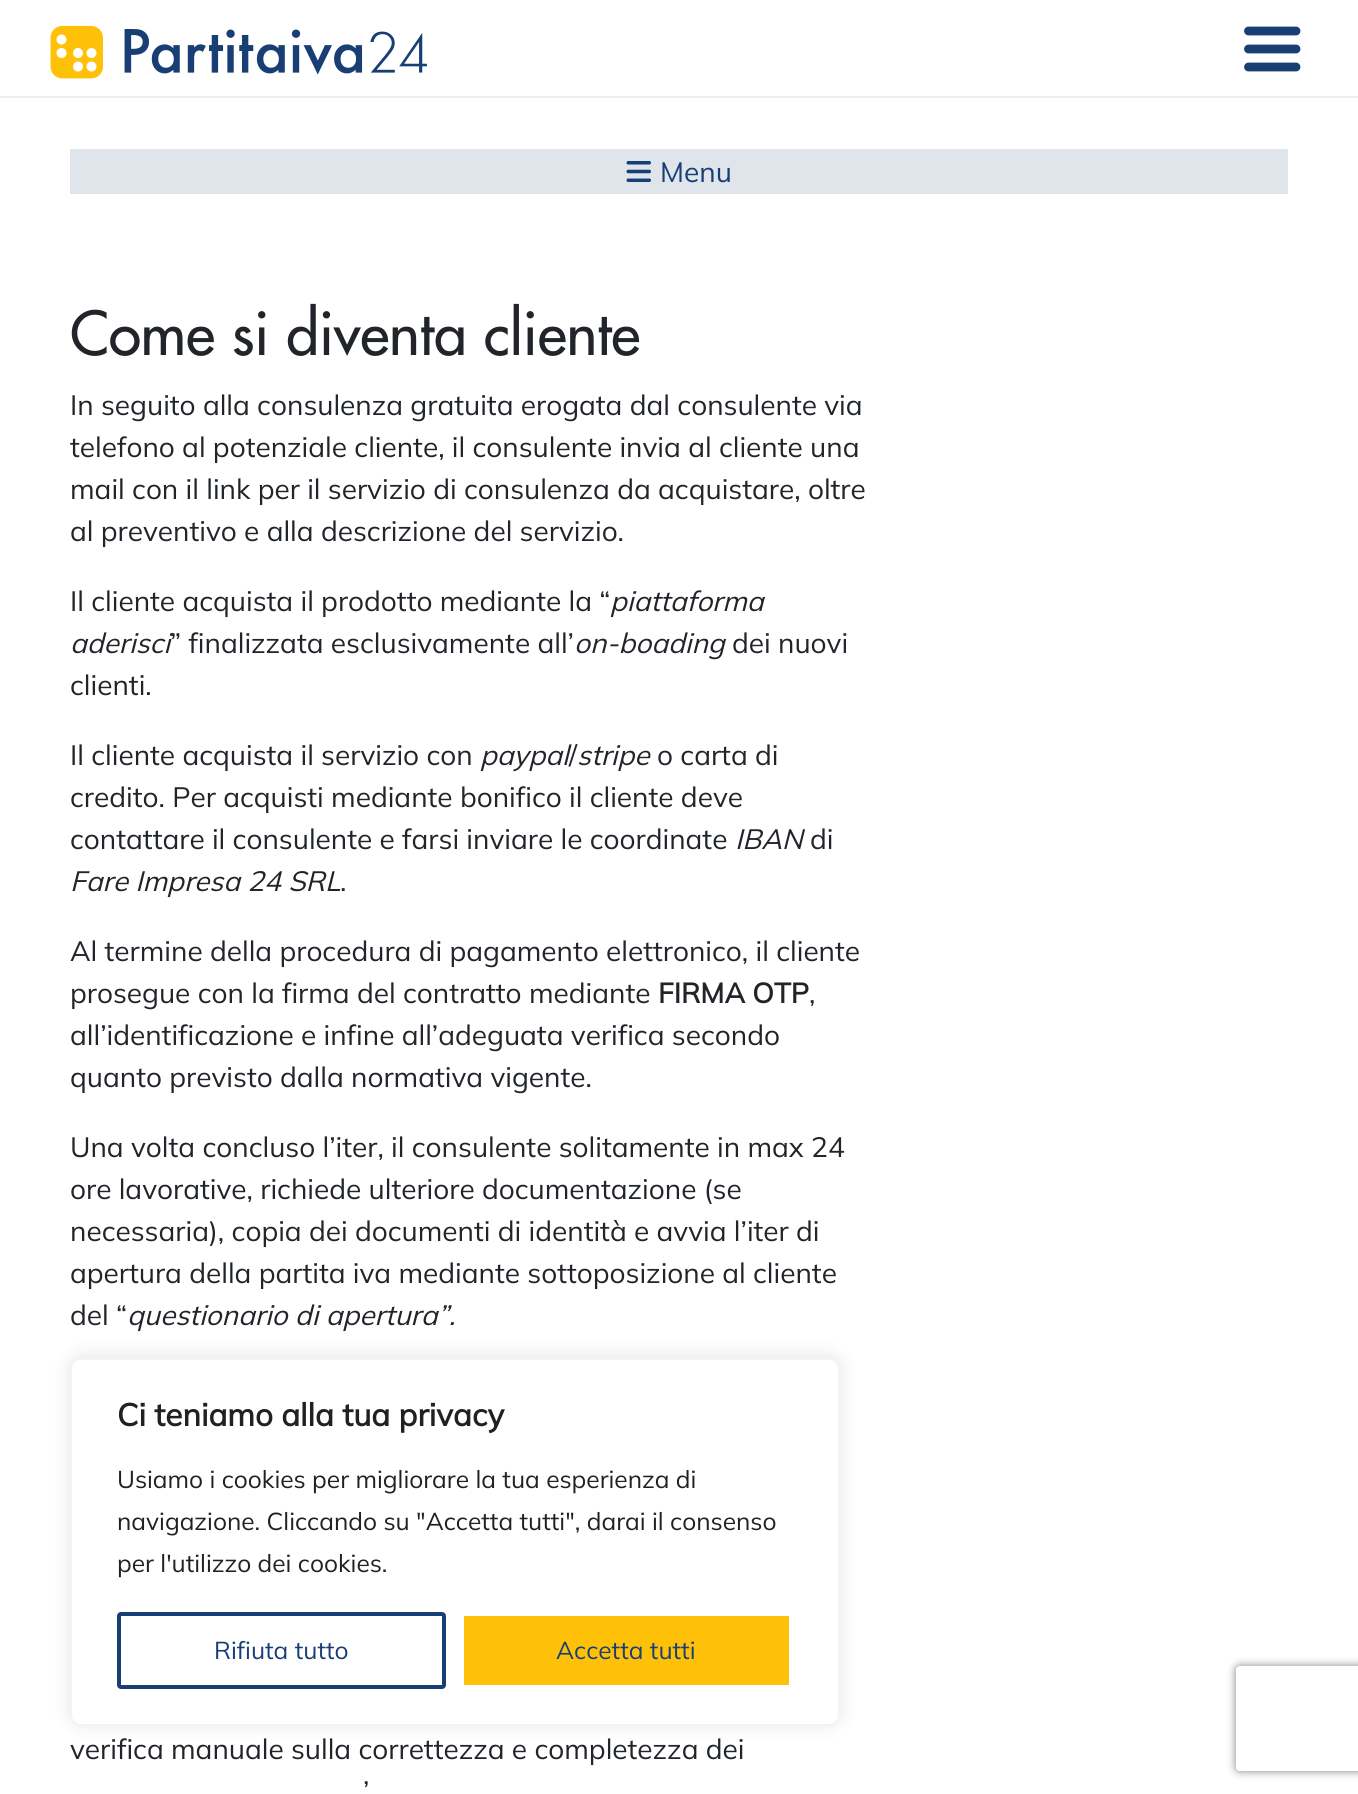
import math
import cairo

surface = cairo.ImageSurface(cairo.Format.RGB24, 1358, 1794)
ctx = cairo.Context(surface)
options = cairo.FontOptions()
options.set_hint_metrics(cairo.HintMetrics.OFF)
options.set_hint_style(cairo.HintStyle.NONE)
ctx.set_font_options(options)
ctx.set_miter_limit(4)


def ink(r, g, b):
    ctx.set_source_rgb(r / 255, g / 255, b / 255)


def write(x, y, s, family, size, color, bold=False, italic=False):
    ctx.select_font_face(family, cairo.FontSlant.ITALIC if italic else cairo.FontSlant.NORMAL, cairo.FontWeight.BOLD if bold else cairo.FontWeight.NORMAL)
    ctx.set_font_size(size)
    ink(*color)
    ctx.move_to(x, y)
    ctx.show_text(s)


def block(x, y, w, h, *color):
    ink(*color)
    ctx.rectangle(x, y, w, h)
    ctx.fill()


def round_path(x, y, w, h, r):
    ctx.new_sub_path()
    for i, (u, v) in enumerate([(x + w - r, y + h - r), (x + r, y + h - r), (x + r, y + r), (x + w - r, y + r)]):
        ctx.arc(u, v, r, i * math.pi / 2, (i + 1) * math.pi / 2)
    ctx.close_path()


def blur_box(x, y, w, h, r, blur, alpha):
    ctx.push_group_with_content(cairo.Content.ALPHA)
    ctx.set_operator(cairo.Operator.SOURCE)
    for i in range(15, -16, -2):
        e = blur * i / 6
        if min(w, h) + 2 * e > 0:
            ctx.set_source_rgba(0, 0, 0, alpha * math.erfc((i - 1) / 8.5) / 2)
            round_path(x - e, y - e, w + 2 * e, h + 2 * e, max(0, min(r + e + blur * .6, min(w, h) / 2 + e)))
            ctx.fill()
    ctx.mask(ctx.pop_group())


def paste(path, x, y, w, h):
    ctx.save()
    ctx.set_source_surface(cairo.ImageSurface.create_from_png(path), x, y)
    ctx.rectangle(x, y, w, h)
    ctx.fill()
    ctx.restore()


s1 = dict(family="Mulish ExtraLight", size=28, color=(24, 63, 117))
s2 = dict(family="Futura", size=58.9, color=(33, 37, 41))
s3 = dict(family="Mulish ExtraLight", size=28, color=(33, 37, 41))
s4 = dict(family="Mulish ExtraLight", size=28, color=(33, 37, 41), italic=True)
s5 = dict(family="Mulish", size=28, color=(33, 37, 41), bold=True)
s6 = dict(family="Mulish", size=31.5, color=(33, 33, 33), bold=True)
s7 = dict(family="Mulish ExtraLight", size=24.5, color=(33, 33, 33))
s8 = dict(family="Mulish ExtraLight", size=24.5, color=(24, 63, 117))

ink(255, 255, 255)
ctx.paint()
block(0, 96, 1358, 2, 234, 239, 243)
paste("pic1.png", 50, 25, 377, 54)
ctx.new_path()
ctx.move_to(1248.5, 31)
ctx.line_to(1296, 31)
ctx.move_to(1248.5, 49)
ctx.line_to(1296, 49)
ctx.move_to(1248.5, 67)
ctx.line_to(1296, 67)
ink(24, 62, 116)
ctx.set_line_width(8.8)
ctx.set_line_cap(cairo.LineCap.ROUND)
ctx.stroke()
block(70, 149, 1218, 45, 224, 228, 235)
paste("pic2.png", 626, 161, 25, 21)
write(660, 182, "Menu", **s1)
write(70, 355, "Come si diventa cliente", **s2)
write(70, 415, "In seguito alla consulenza gratuita erogata dal consulente via", **s3)
write(70, 457, "telefono al potenziale cliente, il consulente invia al cliente una", **s3)
write(70, 499, "mail con il link per il servizio di consulenza da acquistare, oltre", **s3)
write(70, 541, "al preventivo e alla descrizione del servizio.", **s3)
write(70, 611, "Il cliente acquista il prodotto mediante la “", **s3)
write(610, 611, "piattaforma", **s4)
write(70, 653, "aderisci", **s4)
write(170, 653, "” finalizzata esclusivamente all’", **s3)
write(574, 653, "on-boading", **s4)
write(732, 653, "dei nuovi", **s3)
write(70, 695, "clienti.", **s3)
write(70, 765, "Il cliente acquista il servizio con", **s3)
write(480, 765, "paypal", **s4)
write(569, 765, "/", **s3)
write(577, 765, "stripe", **s4)
write(657, 765, "o carta di", **s3)
write(70, 807, "credito. Per acquisti mediante bonifico il cliente deve", **s3)
write(70, 849, "contattare il consulente e farsi inviare le coordinate", **s3)
write(735, 849, "IBAN", **s4)
write(810, 849, "di", **s3)
write(70, 891, "Fare Impresa 24 SRL", **s4)
write(340, 891, ".", **s3)
write(70, 961, "Al termine della procedura di pagamento elettronico, il cliente", **s3)
write(70, 1003, "prosegue con la firma del contratto mediante", **s3)
write(658, 1003, "FIRMA OTP", **s5)
write(809, 1003, ",", **s3)
write(70, 1045, "all’identificazione e infine all’adeguata verifica secondo", **s3)
write(70, 1087, "quanto previsto dalla normativa vigente.", **s3)
write(70, 1157, "Una volta concluso l’iter, il consulente solitamente in max 24", **s3)
write(70, 1199, "ore lavorative, richiede ulteriore documentazione (se", **s3)
write(70, 1241, "necessaria), copia dei documenti di identità e avvia l’iter di", **s3)
write(70, 1283, "apertura della partita iva mediante sottoposizione al cliente", **s3)
write(70, 1325, "del “", **s3)
write(127, 1325, "questionario di apertura”.", **s4)
write(70, 1759, "verifica manuale sulla correttezza e completezza dei", **s3)
write(363, 1801, "’", **s3)
ink(172, 171, 171)
blur_box(70, 1356, 770, 368, 11, 9, 0.3)
ink(255, 255, 255)
round_path(71, 1359, 768, 366, 10)
ctx.fill_preserve()
ink(244, 244, 244)
ctx.set_line_width(2)
ctx.set_line_cap(cairo.LineCap.BUTT)
ctx.stroke()
write(117, 1426, "Ci teniamo alla tua privacy", **s6)
write(117, 1488, "Usiamo i cookies per migliorare la tua esperienza di", **s7)
write(117, 1530, "navigazione. Cliccando su \"Accetta tutti\", darai il consenso", **s7)
write(117, 1572, "per l'utilizzo dei cookies.", **s7)
round_path(119, 1614, 325, 73, 2)
ink(24, 63, 117)
ctx.set_line_width(4)
ctx.stroke()
write(214, 1659, "Rifiuta tutto", **s8)
ink(255, 193, 8)
round_path(462, 1614, 329, 73, 2)
ctx.fill_preserve()
ink(255, 255, 255)
ctx.stroke()
write(556, 1659, "Accetta tutti", **s8)
ctx.save()
ctx.set_fill_rule(cairo.FillRule.EVEN_ODD)
ctx.new_path()
ctx.move_to(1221, 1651)
ctx.line_to(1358, 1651)
ctx.line_to(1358, 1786)
ctx.line_to(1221, 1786)
ctx.close_path()
ctx.move_to(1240, 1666)
ctx.line_to(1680, 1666)
ctx.curve_to(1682, 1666, 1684, 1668, 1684, 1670)
ctx.line_to(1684, 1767)
ctx.curve_to(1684, 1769, 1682, 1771, 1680, 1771)
ctx.line_to(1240, 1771)
ctx.curve_to(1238, 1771, 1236, 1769, 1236, 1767)
ctx.line_to(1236, 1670)
ctx.curve_to(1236, 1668, 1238, 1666, 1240, 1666)
ctx.close_path()
ctx.clip()
ink(128, 128, 128)
blur_box(1236, 1666, 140, 105, 4, 4.5, 1)
ctx.restore()
surface.write_to_png("screenshot.png")
